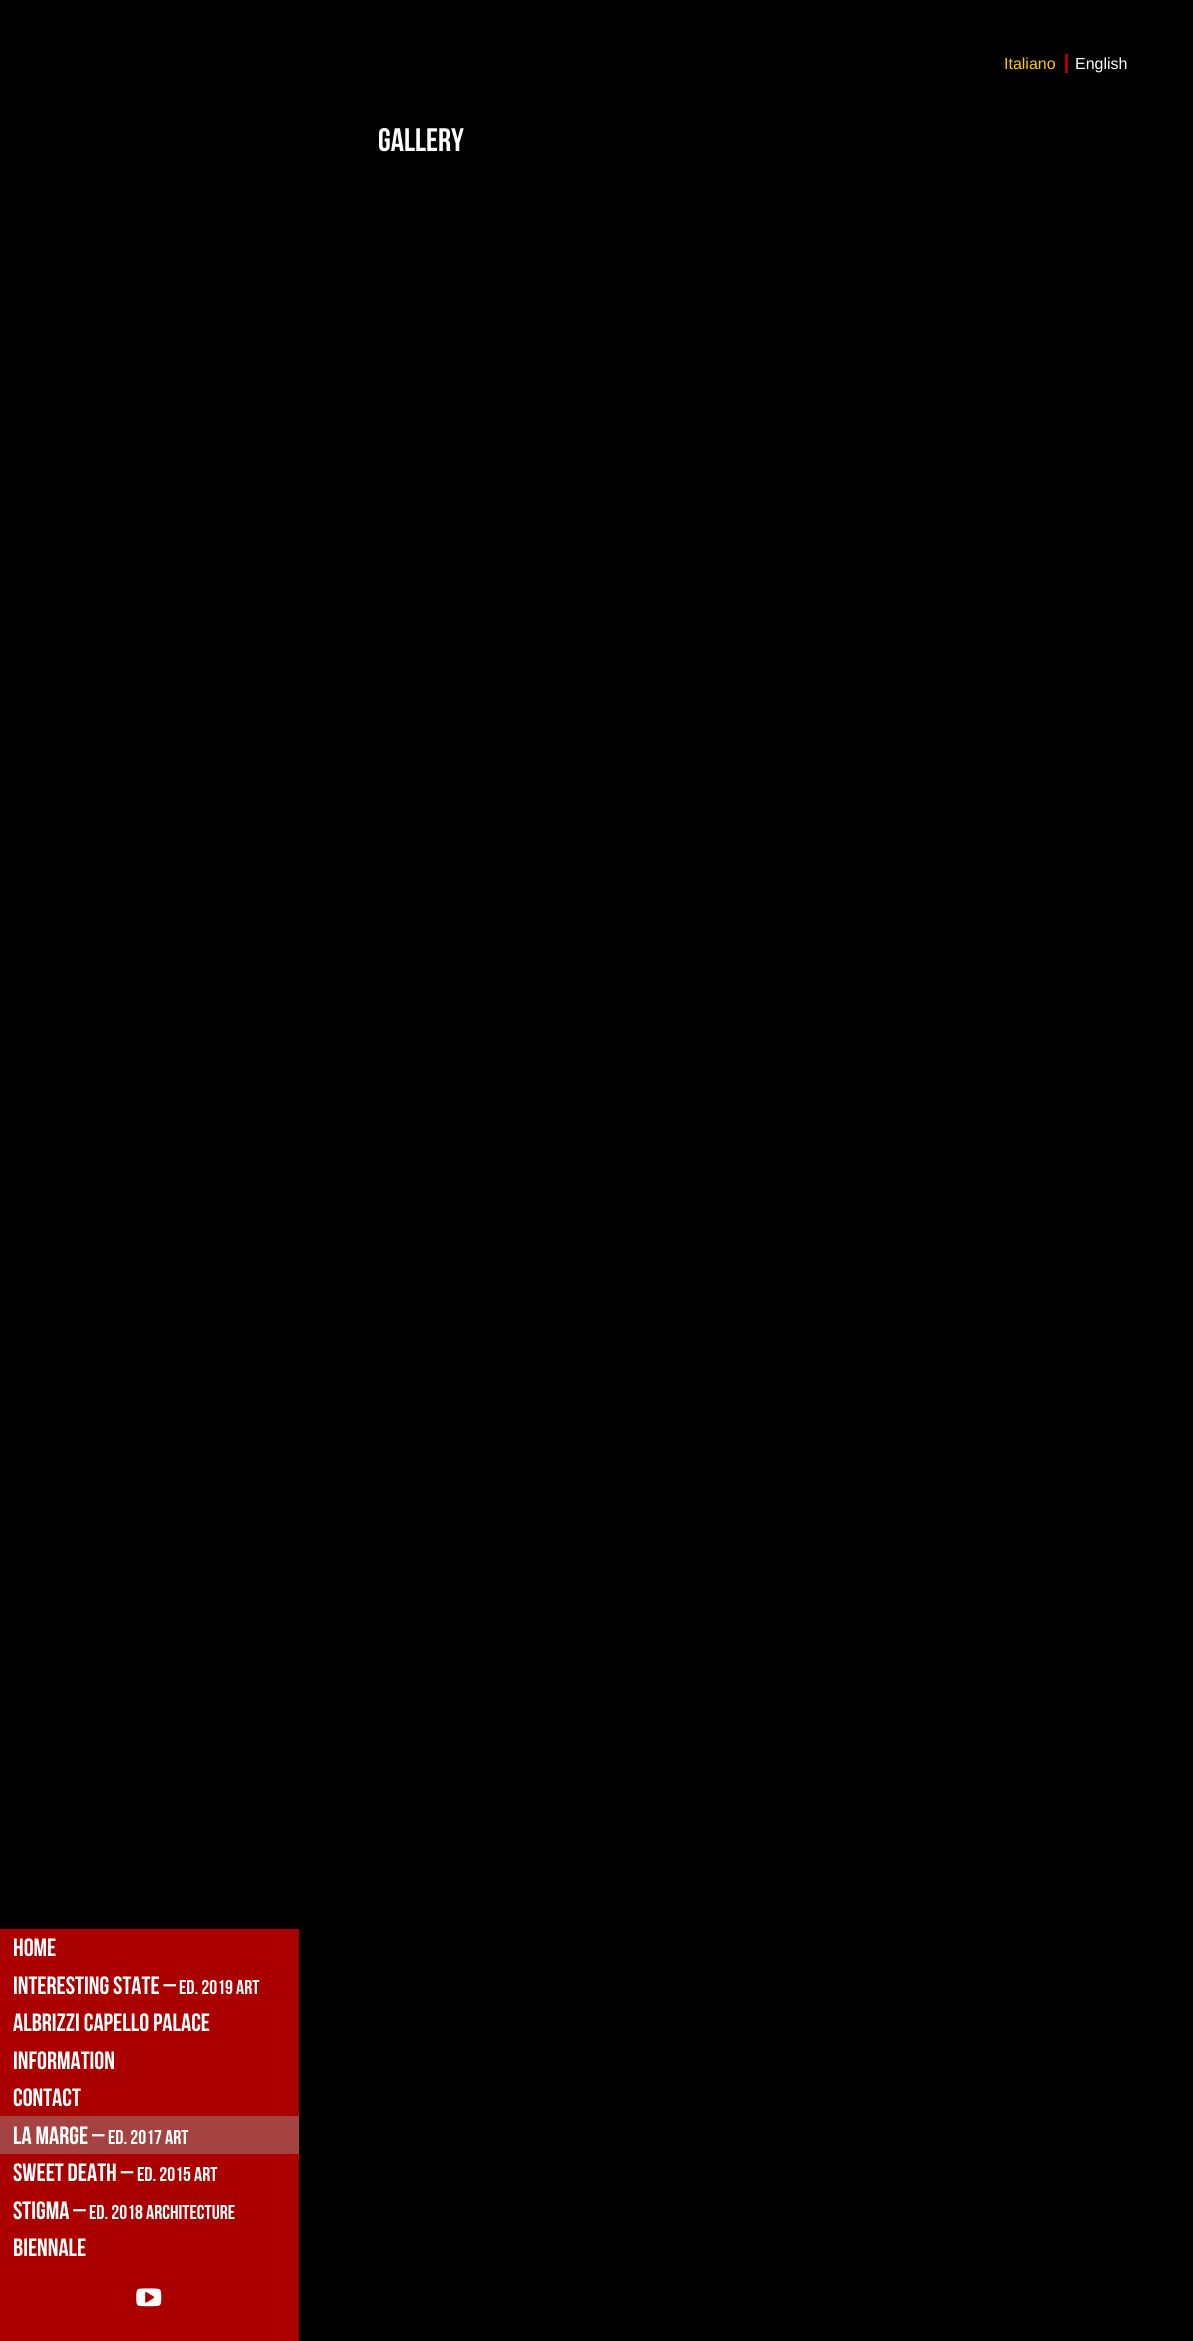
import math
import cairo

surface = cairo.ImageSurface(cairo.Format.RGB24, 1193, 2341)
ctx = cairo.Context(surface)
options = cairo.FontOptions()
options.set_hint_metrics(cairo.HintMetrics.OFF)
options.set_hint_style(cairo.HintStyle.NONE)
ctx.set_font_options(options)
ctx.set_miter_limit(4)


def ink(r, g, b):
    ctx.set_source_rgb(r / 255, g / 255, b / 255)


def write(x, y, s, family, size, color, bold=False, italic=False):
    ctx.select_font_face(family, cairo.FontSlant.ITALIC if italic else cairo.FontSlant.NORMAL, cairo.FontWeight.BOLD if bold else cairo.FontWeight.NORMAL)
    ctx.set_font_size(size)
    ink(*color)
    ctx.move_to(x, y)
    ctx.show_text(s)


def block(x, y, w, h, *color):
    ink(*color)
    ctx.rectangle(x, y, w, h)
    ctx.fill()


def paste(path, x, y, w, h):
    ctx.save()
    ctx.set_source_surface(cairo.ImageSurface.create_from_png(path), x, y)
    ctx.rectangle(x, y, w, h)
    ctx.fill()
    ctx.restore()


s1 = dict(family="Liberation Sans", size=16, color=(255, 201, 0))
s2 = dict(family="Liberation Sans", size=16, color=(255, 255, 255))
s3 = dict(family="Bebas Neue", size=25, color=(255, 255, 255))
s4 = dict(family="Bebas Neue", size=20, color=(255, 255, 255))
s5 = dict(family="Bebas Neue", size=32.5, color=(255, 255, 255))

ink(0, 0, 0)
ctx.paint()
write(1004, 69, "Italiano", **s1)
write(1075, 69, "English", **s2)
block(1065, 54, 3, 19, 170, 0, 0)
block(0, 1929, 299, 412, 170, 0, 0)
write(13, 1956, "Home", **s3)
write(13, 1994, "Interesting State –", **s3)
write(179, 1994, "ed. 2019 Art", **s4)
write(13, 2031, "Albrizzi Capello Palace", **s3)
write(13, 2069, "Information", **s3)
write(13, 2106, "Contact", **s3)
block(0, 2116, 299, 38, 165, 66, 66)
write(13, 2144, "La Marge –", **s3)
write(108, 2144, "ed. 2017 Art", **s4)
write(13, 2181, "Sweet Death –", **s3)
write(137, 2181, "ed. 2015 Art", **s4)
write(13, 2219, "Stigma –", **s3)
write(89, 2219, "ed. 2018 Architecture", **s4)
write(13, 2256, "Biennale", **s3)
paste("pic1.png", 136, 2288, 26, 19)
write(378, 151, "Gallery", **s5)
surface.write_to_png("screenshot.png")
